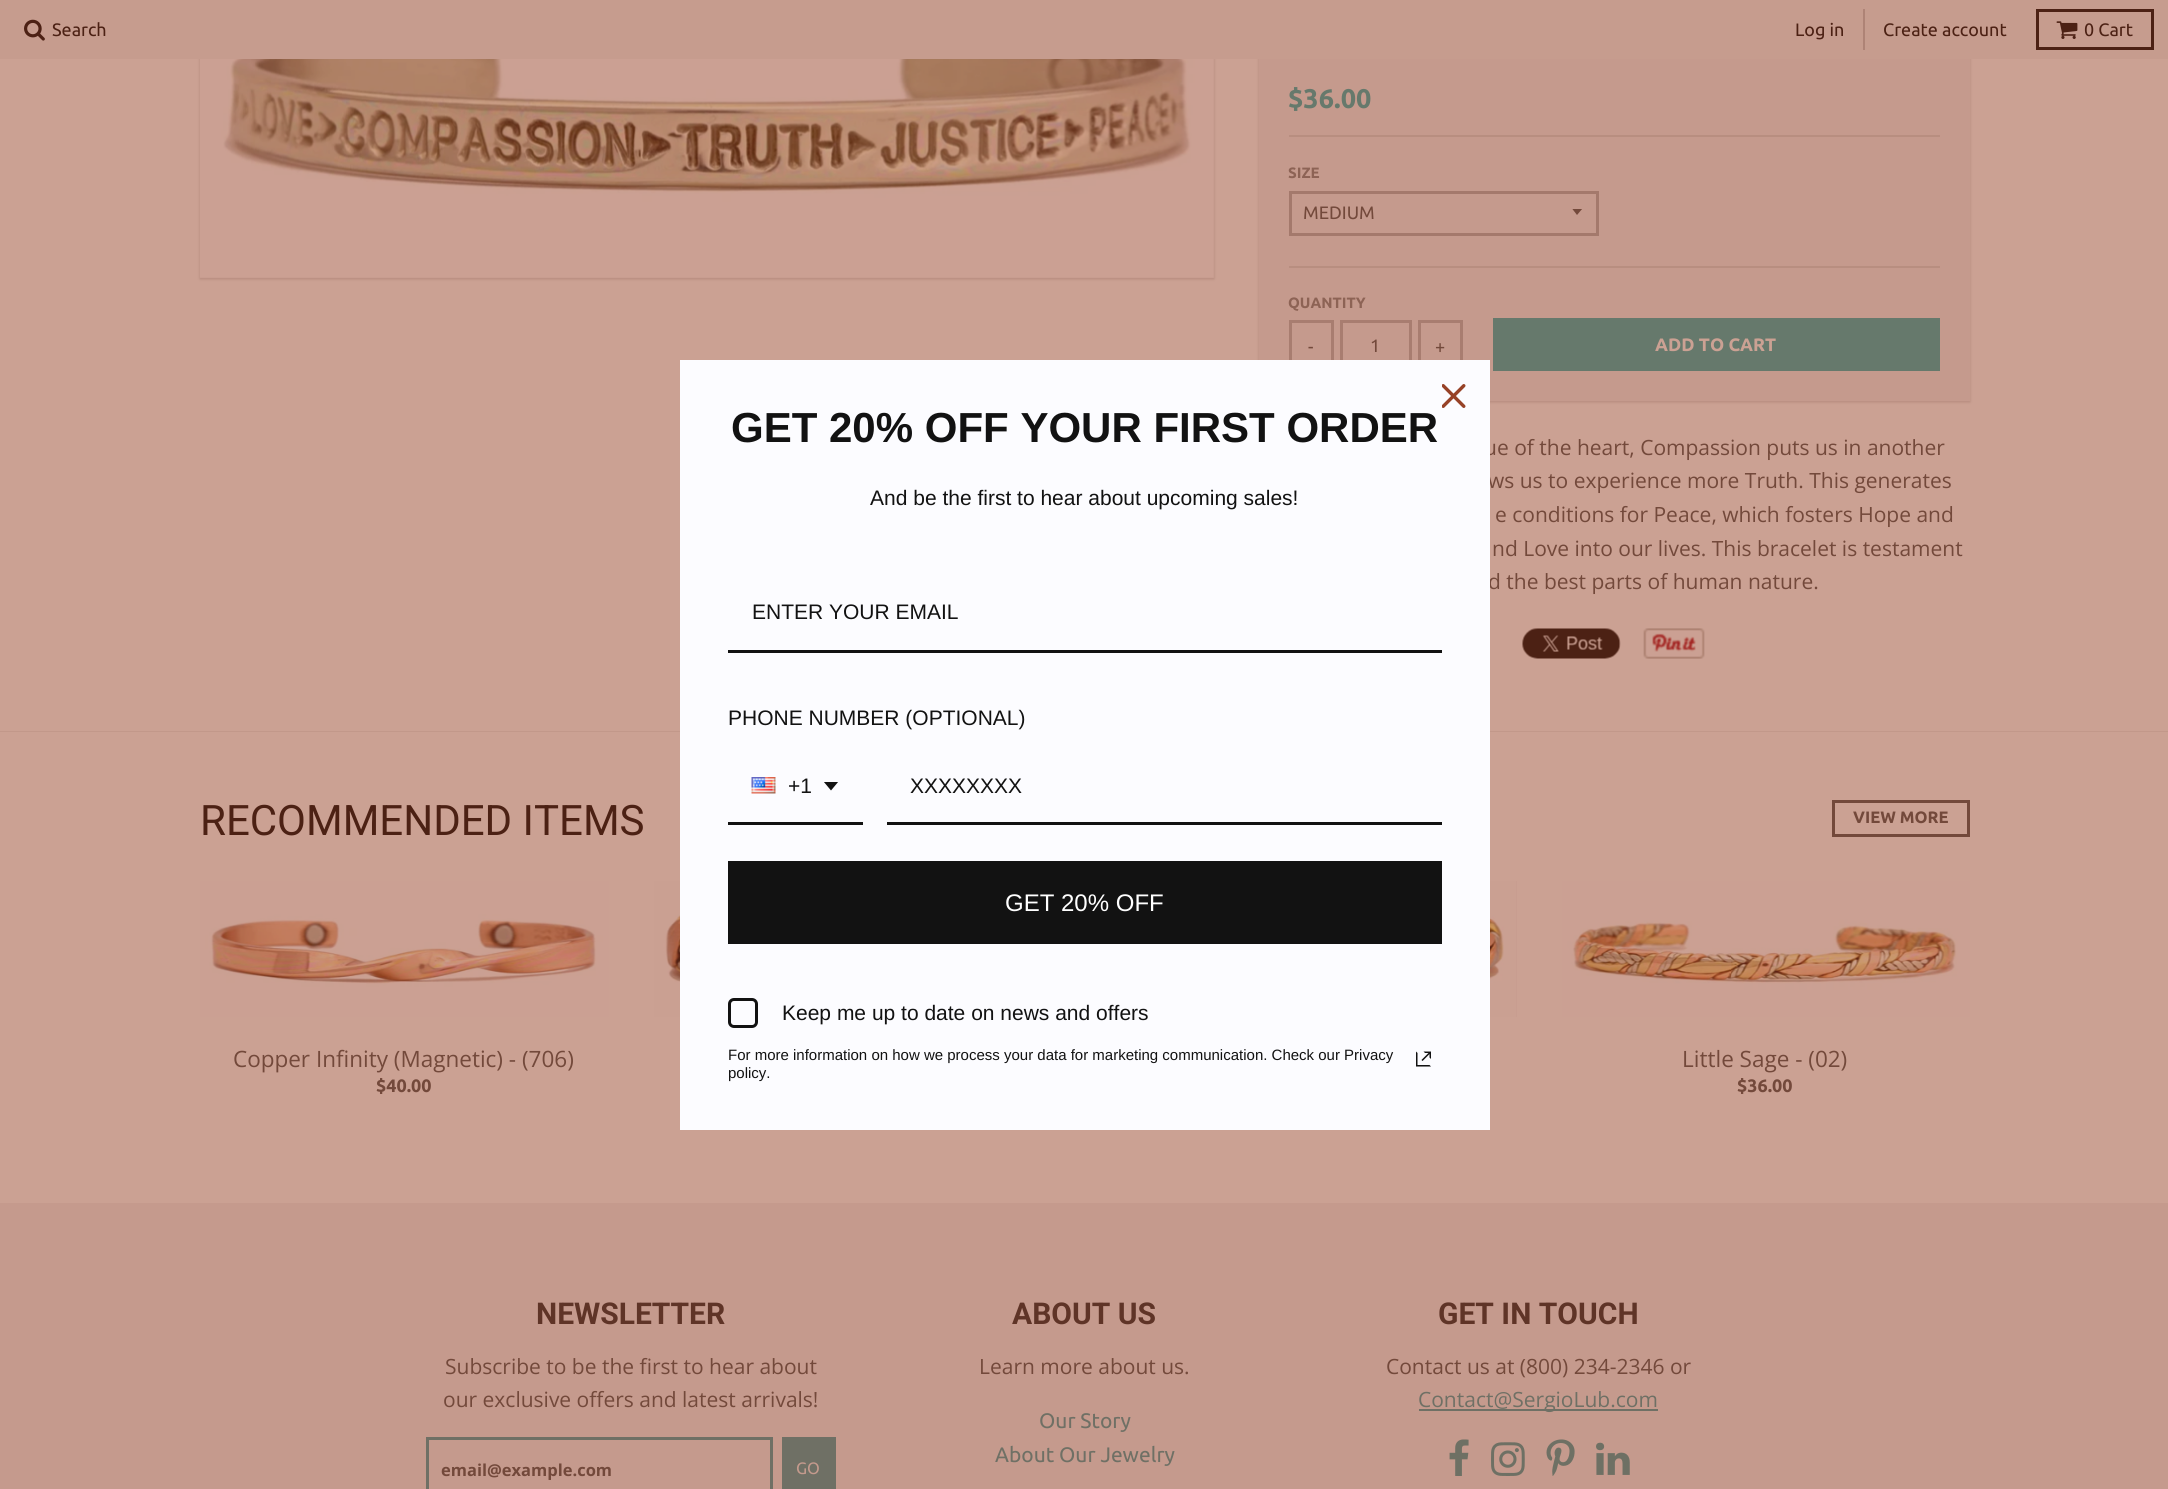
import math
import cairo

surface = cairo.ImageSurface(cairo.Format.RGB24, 2168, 1489)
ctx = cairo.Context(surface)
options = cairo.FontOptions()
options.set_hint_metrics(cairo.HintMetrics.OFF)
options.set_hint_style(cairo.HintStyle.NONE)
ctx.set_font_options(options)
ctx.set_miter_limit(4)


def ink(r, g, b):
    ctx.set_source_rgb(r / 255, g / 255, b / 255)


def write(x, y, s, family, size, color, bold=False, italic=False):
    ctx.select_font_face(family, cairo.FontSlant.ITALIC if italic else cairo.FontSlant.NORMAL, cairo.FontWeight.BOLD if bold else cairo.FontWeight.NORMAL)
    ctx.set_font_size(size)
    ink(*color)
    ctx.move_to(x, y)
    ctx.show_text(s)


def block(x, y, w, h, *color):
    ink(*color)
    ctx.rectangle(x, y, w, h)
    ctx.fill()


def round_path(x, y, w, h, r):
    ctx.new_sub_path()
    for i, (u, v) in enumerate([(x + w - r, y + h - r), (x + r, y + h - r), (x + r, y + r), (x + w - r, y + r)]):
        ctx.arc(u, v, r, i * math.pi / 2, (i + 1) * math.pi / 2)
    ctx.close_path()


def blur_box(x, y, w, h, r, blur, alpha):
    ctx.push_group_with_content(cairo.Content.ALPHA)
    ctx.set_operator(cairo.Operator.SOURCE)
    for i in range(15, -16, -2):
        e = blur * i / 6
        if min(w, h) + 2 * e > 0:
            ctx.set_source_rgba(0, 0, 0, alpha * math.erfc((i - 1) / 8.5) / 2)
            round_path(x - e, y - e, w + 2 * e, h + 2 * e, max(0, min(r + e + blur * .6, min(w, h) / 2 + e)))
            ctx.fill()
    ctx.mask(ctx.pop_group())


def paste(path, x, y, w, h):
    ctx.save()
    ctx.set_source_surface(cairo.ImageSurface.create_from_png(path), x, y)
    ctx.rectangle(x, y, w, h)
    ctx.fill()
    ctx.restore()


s1 = dict(family="Ubuntu", size=18, color=(76, 33, 20))
s2 = dict(family="Ubuntu", size=27, color=(102, 121, 108), bold=True)
s3 = dict(family="Ubuntu", size=15, color=(141, 99, 85), bold=True)
s4 = dict(family="Ubuntu", size=18, color=(115, 73, 59))
s5 = dict(family="Ubuntu", size=18, color=(203, 161, 147), bold=True)
s6 = dict(family="Open Sans", size=21, color=(115, 73, 59))
s7 = dict(family="Roboto", size=42, color=(76, 33, 20))
s8 = dict(family="Ubuntu", size=16.5, color=(115, 73, 59), bold=True)
s9 = dict(family="Open Sans", size=22.5, color=(115, 73, 59))
s10 = dict(family="Ubuntu", size=18, color=(115, 73, 59), bold=True)
s11 = dict(family="Roboto", size=30, color=(95, 52, 39), bold=True)
s12 = dict(family="Open Sans", size=16.5, color=(115, 73, 59), bold=True)
s13 = dict(family="Ubuntu", size=16.5, color=(197, 154, 141))
s14 = dict(family="Ubuntu", size=21, color=(111, 112, 101))
s15 = dict(family="Open Sans", size=21, color=(111, 112, 101))
s16 = dict(family="Liberation Sans", size=42, color=(18, 18, 18), bold=True)
s17 = dict(family="Liberation Sans", size=21, color=(18, 18, 18))
s18 = dict(family="Liberation Sans", size=24, color=(255, 255, 255))
s19 = dict(family="Liberation Sans", size=15, color=(18, 18, 18))

ink(203, 161, 147)
ctx.paint()
ink(76, 33, 20)
blur_box(200, -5, 1014, 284, 0, 1.5, 0.2)
blur_box(1259, -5, 711, 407, 0, 1.5, 0.2)
block(0, 0, 2168, 59, 198, 156, 142)
paste("pic1.png", 24, 19, 21, 22)
write(52, 36, "Search", **s1)
block(1863, 9, 2, 41, 174, 131, 118)
write(1795, 36, "Log in", **s1)
write(1883, 36, "Create account", **s1)
ctx.rectangle(2037.5, 10.5, 115, 38)
ctx.set_line_width(3)
ctx.stroke()
paste("pic2.png", 2056, 21, 22, 18)
write(2084, 36, "0 Cart", **s1)
block(0, 731, 2168, 1, 194, 152, 138)
block(200, 59, 1014, 219, 197, 154, 141)
paste("pic3.png", 200, 59, 1014, 219)
block(1259, 59, 711, 342, 197, 154, 141)
block(1289, 135, 651, 2, 184, 142, 128)
write(1288, 108, "$36.00", **s2)
block(1289, 266, 651, 2, 184, 142, 128)
write(1288, 178, "SIZE", **s3)
ctx.save()
ctx.rectangle(1572, 209, 12, 7)
ctx.clip()
ink(115, 73, 59)
ctx.new_path()
ctx.move_to(1572, 208.5)
ctx.line_to(1577, 215)
ctx.line_to(1582.5, 208.5)
ctx.close_path()
ctx.fill()
ctx.restore()
ctx.rectangle(1290.5, 192.5, 307, 42)
ink(164, 121, 108)
ctx.stroke()
write(1303, 219, "MEDIUM", **s4)
write(1288, 308, "QUANTITY", **s3)
ctx.rectangle(1290.5, 321.5, 42, 48)
ink(168, 125, 112)
ctx.stroke()
write(1308, 353, "-", **s4)
ctx.rectangle(1341.5, 321.5, 69, 48)
ink(168, 125, 112)
ctx.stroke()
write(1370, 352, "1", **s4)
ctx.rectangle(1419.5, 321.5, 42, 48)
ink(168, 125, 112)
ctx.stroke()
write(1435, 353, "+", **s4)
block(1493, 318, 447, 53, 102, 121, 108)
write(1655, 351, "ADD TO CART", **s5)
write(1484, 455, "ue of the heart, Compassion puts us in another", **s6)
write(1488, 488, "ws us to experience more Truth. This generates", **s6)
write(1495, 522, "e conditions for Peace, which fosters Hope and", **s6)
write(1492, 556, "nd Love into our lives. This bracelet is testament", **s6)
write(1488, 589, "d the best parts of human nature.", **s6)
paste("pic4.png", 1522, 628, 99, 31)
paste("pic5.png", 1643, 628, 62, 31)
write(200, 835, "RECOMMENDED ITEMS", **s7)
ctx.rectangle(1833.5, 801.5, 135, 34)
ink(115, 73, 59)
ctx.stroke()
write(1853, 823, "VIEW MORE", **s8)
paste("pic6.png", 654, 881, 26, 136)
block(1516, 881, 1, 136, 197, 154, 141)
paste("pic7.png", 1490, 881, 27, 136)
paste("pic8.png", 200, 881, 409, 136)
write(233, 1067, "Copper Infinity (Magnetic) - (706)", **s9)
write(376, 1092, "$40.00", **s10)
paste("pic9.png", 1562, 881, 408, 136)
write(1682, 1067, "Little Sage - (02)", **s9)
write(1737, 1092, "$36.00", **s10)
block(0, 1203, 2168, 286, 197, 154, 141)
write(536, 1324, "NEWSLETTER", **s11)
write(445, 1374, "Subscribe to be the first to hear about", **s6)
write(443, 1407, "our exclusive offers and latest arrivals!", **s6)
ctx.rectangle(427.5, 1438.5, 344, 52)
ink(111, 112, 101)
ctx.stroke()
write(441, 1476, "email@example.com", **s12)
block(782, 1437, 54, 52, 111, 112, 101)
write(796, 1474, "GO", **s13)
write(1012, 1324, "ABOUT US", **s11)
write(979, 1374, "Learn more about us.", **s6)
write(1039, 1428, "Our Story", **s14)
write(995, 1462, "About Our Jewelry", **s14)
write(1438, 1324, "GET IN TOUCH", **s11)
write(1386, 1374, "Contact us at (800) 234-2346 or", **s6)
block(1419, 1409, 239, 2, 111, 112, 101)
write(1418, 1407, "Contact@SergioLub.com", **s15)
paste("pic10.png", 1449, 1439, 20, 37)
paste("pic11.png", 1491, 1442, 34, 34)
paste("pic12.png", 1546, 1439, 29, 37)
paste("pic13.png", 1596, 1442, 34, 33)
block(680, 360, 810, 770, 252, 252, 255)
paste("pic14.png", 1442, 384, 24, 24)
write(731, 442, "GET 20% OFF YOUR FIRST ORDER", **s16)
write(870, 505, "And be the first to hear about upcoming sales!", **s17)
block(728, 650, 714, 3, 18, 18, 18)
write(752, 619, "ENTER YOUR EMAIL", **s17)
write(728, 725, "PHONE NUMBER (OPTIONAL)", **s17)
block(728, 822, 135, 3, 18, 18, 18)
paste("pic15.png", 751, 777, 25, 17)
write(788, 793, "+1", **s17)
ctx.save()
ctx.rectangle(824, 782, 15, 9)
ctx.clip()
ctx.set_fill_rule(cairo.FillRule.EVEN_ODD)
ctx.new_path()
ctx.move_to(823.5, 781.5)
ctx.line_to(838.5, 781.5)
ctx.line_to(831, 790.5)
ctx.close_path()
ctx.fill()
ctx.restore()
block(887, 822, 555, 3, 18, 18, 18)
write(910, 793, "XXXXXXXX", **s17)
block(728, 861, 714, 83, 18, 18, 18)
write(1005, 911, "GET 20% OFF", **s18)
round_path(729.5, 999.5, 27, 27, 4.5)
ink(18, 18, 18)
ctx.stroke()
write(782, 1020, "Keep me up to date on news and offers", **s17)
write(728, 1060, "For more information on how we process your data for marketing communication. Check our Privacy", **s19)
write(728, 1078, "policy.", **s19)
paste("pic16.png", 1416, 1051, 15, 16)
surface.write_to_png("screenshot.png")
